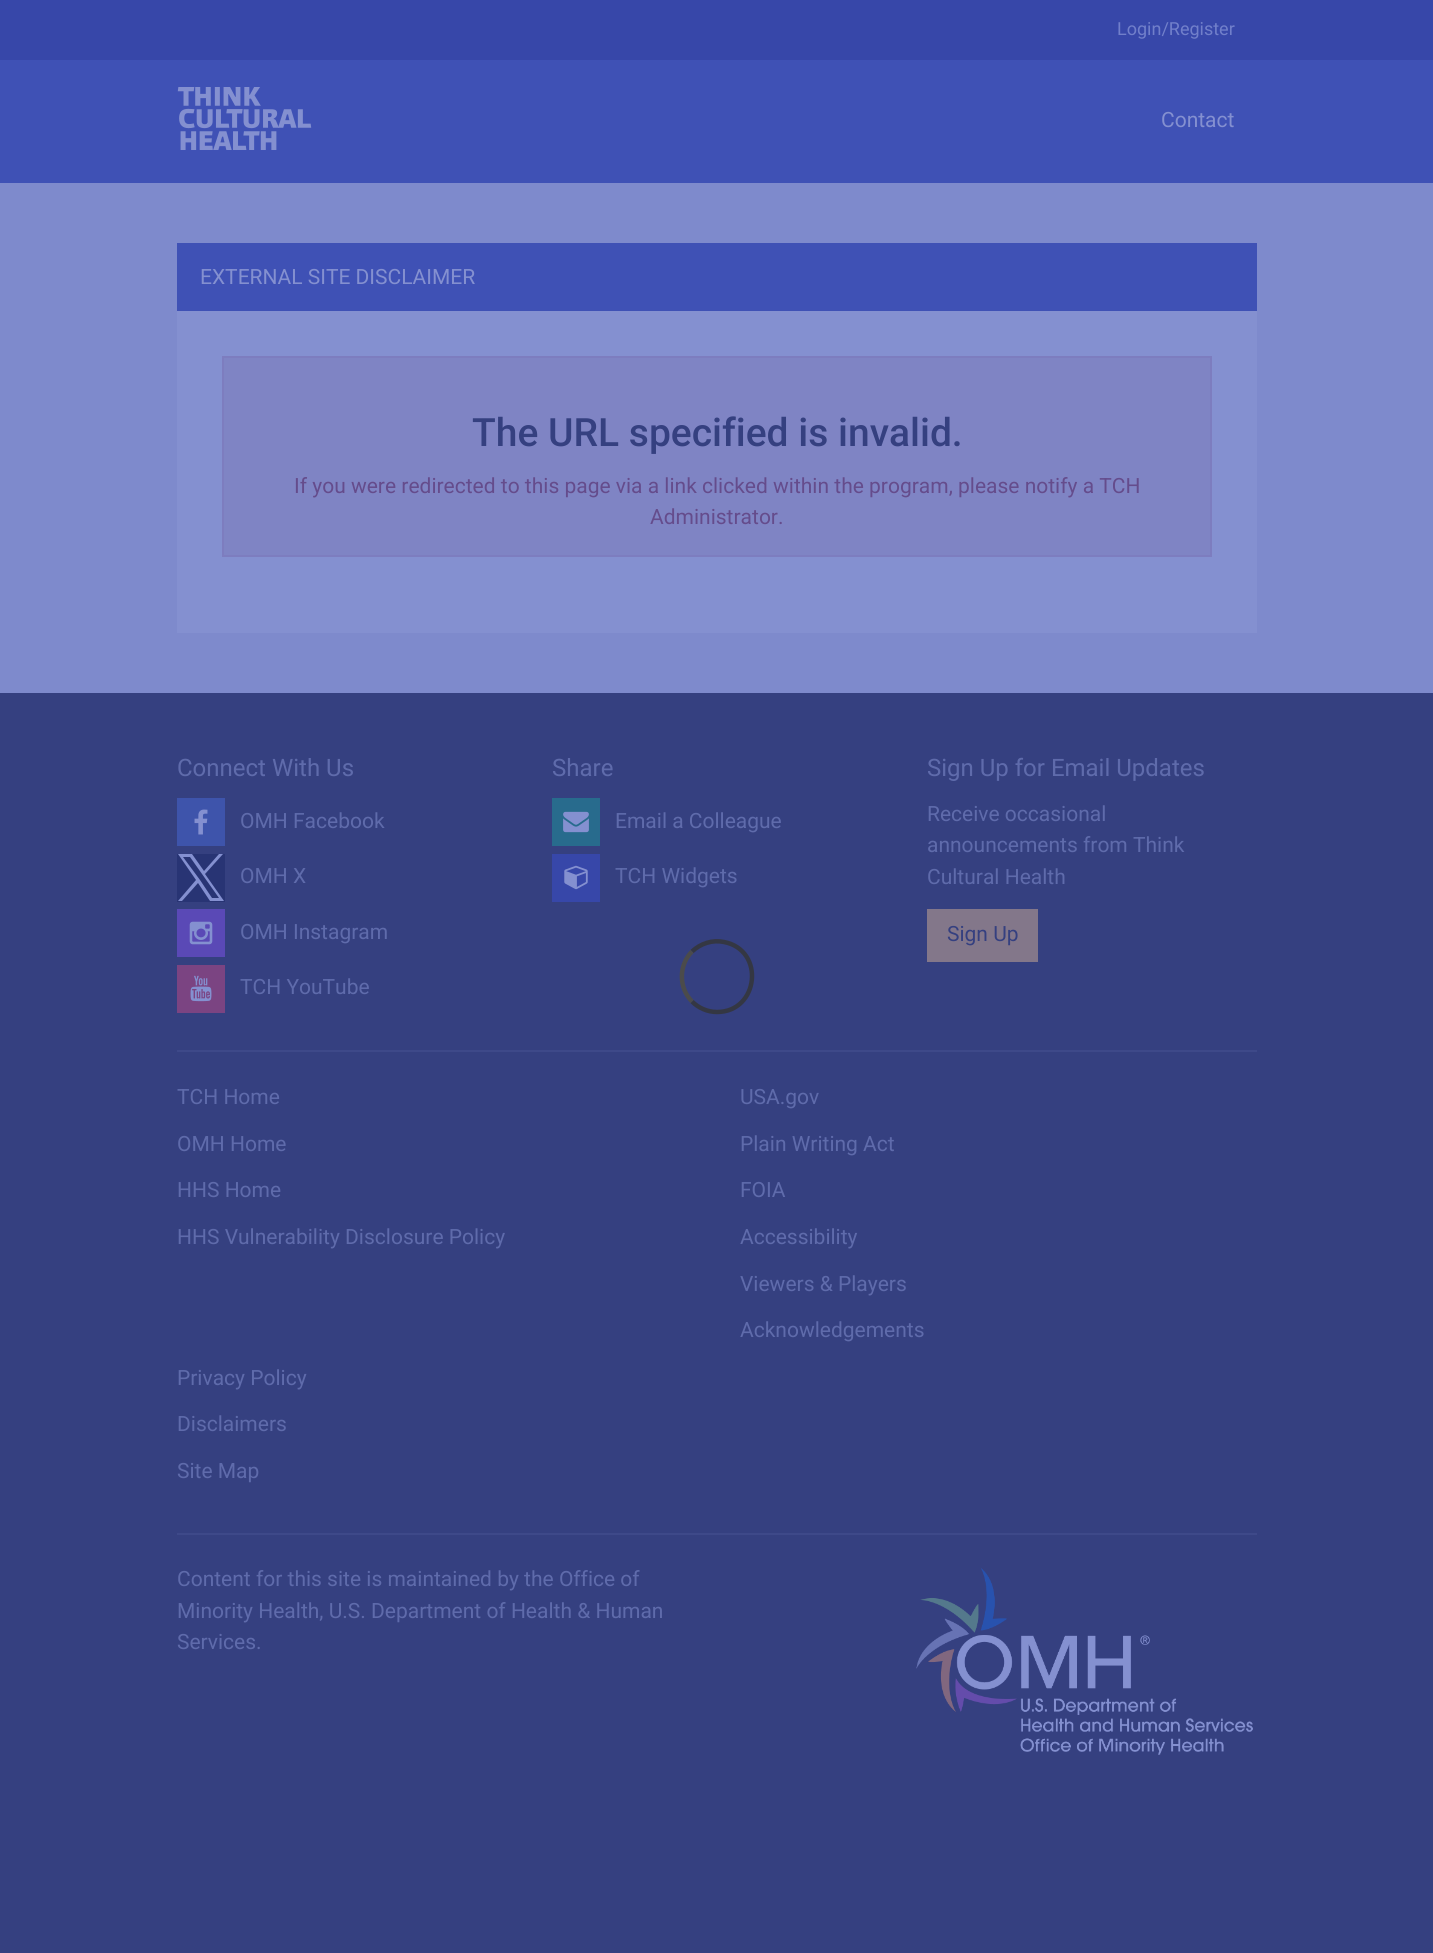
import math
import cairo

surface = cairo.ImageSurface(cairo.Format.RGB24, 1433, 1953)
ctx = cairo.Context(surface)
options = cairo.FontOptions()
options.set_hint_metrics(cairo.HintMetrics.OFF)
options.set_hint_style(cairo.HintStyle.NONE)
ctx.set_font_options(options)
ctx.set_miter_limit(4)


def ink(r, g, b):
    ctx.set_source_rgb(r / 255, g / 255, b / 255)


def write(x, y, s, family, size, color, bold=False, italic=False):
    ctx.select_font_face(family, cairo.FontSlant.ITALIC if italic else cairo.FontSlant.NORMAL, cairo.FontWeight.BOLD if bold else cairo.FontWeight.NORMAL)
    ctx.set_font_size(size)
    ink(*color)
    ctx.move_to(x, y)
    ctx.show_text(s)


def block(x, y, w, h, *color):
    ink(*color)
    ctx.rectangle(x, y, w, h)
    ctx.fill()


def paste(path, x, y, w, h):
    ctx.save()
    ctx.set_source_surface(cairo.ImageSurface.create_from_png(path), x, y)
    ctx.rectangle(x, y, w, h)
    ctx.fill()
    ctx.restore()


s1 = dict(family="Roboto", size=18, color=(113, 127, 202))
s2 = dict(family="Roboto", size=21, color=(132, 144, 208))
s3 = dict(family="Roboto Medium", size=39, color=(53, 64, 128))
s4 = dict(family="Roboto", size=21, color=(101, 76, 140))
s5 = dict(family="Roboto", size=24, color=(95, 107, 171))
s6 = dict(family="Roboto", size=21, color=(95, 107, 171))
s7 = dict(family="Roboto", size=21, color=(53, 64, 128))

ink(53, 64, 128)
ctx.paint()
block(0, 0, 1433, 60, 55, 71, 169)
write(1117, 35, "Login/Register", **s1)
block(0, 60, 1433, 123, 63, 81, 181)
paste("pic1.png", 177, 87, 135, 63)
write(1161, 127, "Contact", **s2)
block(0, 183, 1433, 510, 126, 138, 204)
block(177, 243, 1080, 68, 63, 81, 181)
write(200, 284, "EXTERNAL SITE DISCLAIMER", **s2)
block(177, 311, 1080, 322, 132, 144, 208)
ink(127, 132, 196)
ctx.rectangle(223, 357, 988, 199)
ctx.fill_preserve()
ink(125, 125, 191)
ctx.stroke()
write(472, 446, "The URL specified is invalid.", **s3)
write(294, 493, "If you were redirected to this page via a link clicked within the program, please notify a TCH", **s4)
write(650, 524, "Administrator.", **s4)
write(177, 776, "Connect With Us", **s5)
block(177, 798, 48, 48, 62, 84, 171)
paste("pic2.png", 194, 809, 14, 26)
write(240, 828, "OMH Facebook", **s6)
block(177, 854, 48, 48, 40, 52, 116)
ink(132, 144, 208)
ctx.new_path()
ctx.move_to(205, 874)
ctx.line_to(223, 854)
ctx.line_to(219, 854)
ctx.line_to(204, 871)
ctx.line_to(192, 854)
ctx.line_to(178, 854)
ctx.line_to(196, 880)
ctx.line_to(178, 901)
ctx.line_to(182, 901)
ctx.line_to(198, 883)
ctx.line_to(210, 901)
ctx.line_to(224, 901)
ctx.close_path()
ctx.move_to(200, 880)
ctx.line_to(183, 857)
ctx.line_to(190, 857)
ctx.line_to(219, 898)
ctx.line_to(212, 898)
ctx.close_path()
ctx.fill()
write(240, 883, "OMH X", **s6)
block(177, 909, 48, 48, 90, 73, 182)
paste("pic3.png", 189, 921, 24, 24)
write(240, 939, "OMH Instagram", **s6)
block(177, 965, 48, 48, 123, 68, 130)
paste("pic4.png", 190, 975, 22, 27)
write(240, 994, "TCH YouTube", **s6)
write(552, 776, "Share", **s5)
block(552, 798, 48, 48, 40, 107, 141)
paste("pic5.png", 563, 811, 26, 22)
write(615, 828, "Email a Colleague", **s6)
block(552, 854, 48, 48, 55, 71, 169)
paste("pic6.png", 564, 865, 24, 25)
write(615, 883, "TCH Widgets", **s6)
write(927, 776, "Sign Up for Email Updates", **s5)
write(927, 821, "Receive occasional", **s6)
write(927, 852, "announcements from Think", **s6)
write(927, 884, "Cultural Health", **s6)
block(927, 909, 111, 53, 131, 119, 138)
write(947, 941, "Sign Up", **s7)
block(177, 1050, 1080, 2, 62, 73, 137)
write(177, 1104, "TCH Home", **s6)
write(177, 1151, "OMH Home", **s6)
write(177, 1197, "HHS Home", **s6)
write(177, 1244, "HHS Vulnerability Disclosure Policy", **s6)
write(740, 1104, "USA.gov", **s6)
write(740, 1151, "Plain Writing Act", **s6)
write(740, 1197, "FOIA", **s6)
write(740, 1244, "Accessibility", **s6)
write(740, 1291, "Viewers & Players", **s6)
write(740, 1337, "Acknowledgements", **s6)
write(177, 1385, "Privacy Policy", **s6)
write(177, 1431, "Disclaimers", **s6)
write(177, 1478, "Site Map", **s6)
block(177, 1533, 1080, 2, 62, 73, 137)
write(177, 1586, "Content for this site is maintained by the Office of", **s6)
write(177, 1618, "Minority Health, U.S. Department of Health & Human", **s6)
write(177, 1649, "Services.", **s6)
paste("pic7.png", 916, 1567, 337, 188)
ctx.new_path()
ctx.move_to(692, 951.5)
ctx.curve_to(700.5, 943.5, 712.5, 939.5, 724, 942)
ctx.curve_to(765.5, 950, 759, 1012, 717, 1012)
ctx.curve_to(707.5, 1012, 698.5, 1008, 692, 1001.5)
ink(52, 55, 67)
ctx.set_line_width(4.5)
ctx.stroke()
ctx.new_path()
ctx.move_to(692, 1001.5)
ctx.curve_to(678.5, 988, 678.5, 965, 692, 951.5)
ink(75, 75, 75)
ctx.stroke()
surface.write_to_png("screenshot.png")
